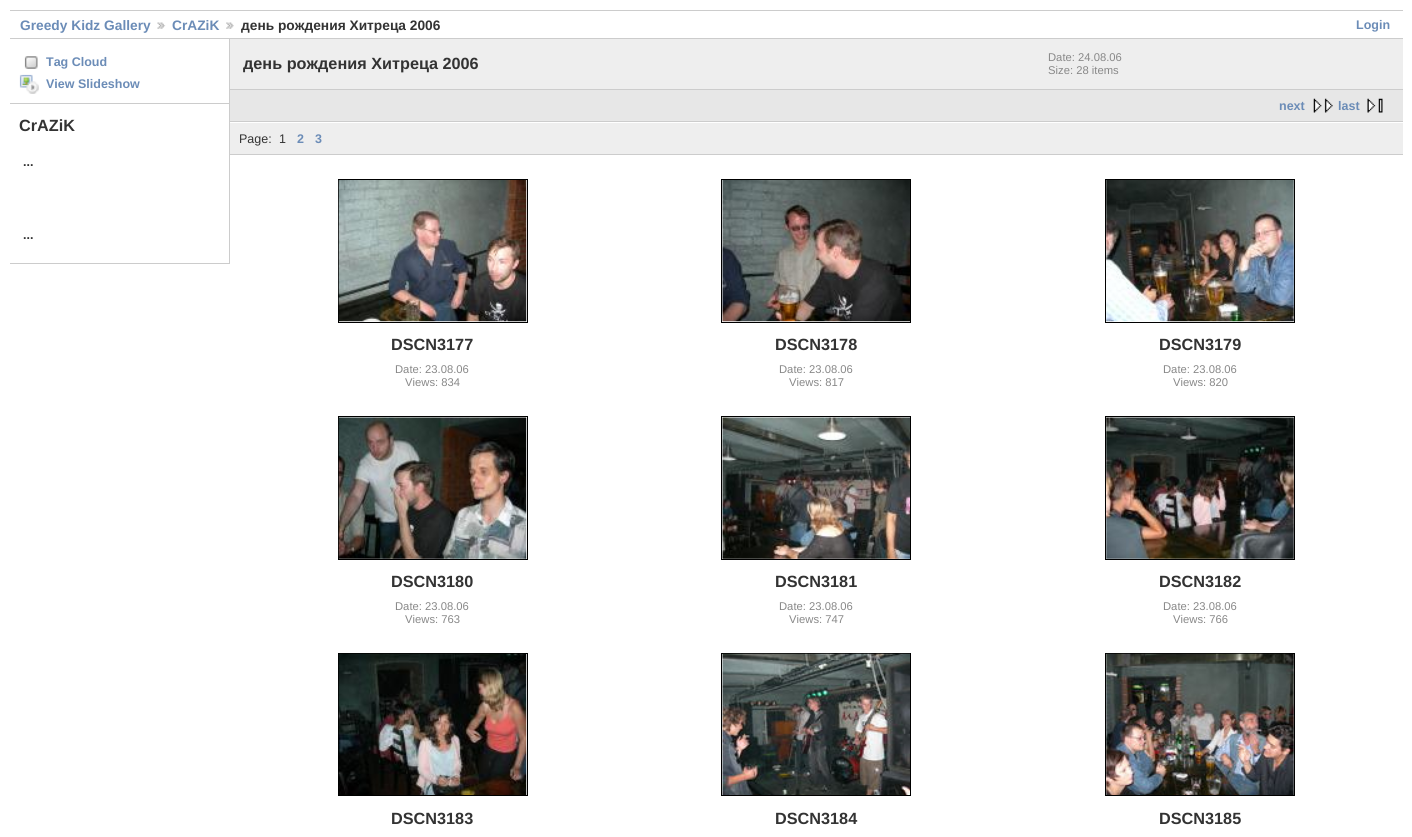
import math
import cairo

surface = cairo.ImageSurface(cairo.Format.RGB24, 1412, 837)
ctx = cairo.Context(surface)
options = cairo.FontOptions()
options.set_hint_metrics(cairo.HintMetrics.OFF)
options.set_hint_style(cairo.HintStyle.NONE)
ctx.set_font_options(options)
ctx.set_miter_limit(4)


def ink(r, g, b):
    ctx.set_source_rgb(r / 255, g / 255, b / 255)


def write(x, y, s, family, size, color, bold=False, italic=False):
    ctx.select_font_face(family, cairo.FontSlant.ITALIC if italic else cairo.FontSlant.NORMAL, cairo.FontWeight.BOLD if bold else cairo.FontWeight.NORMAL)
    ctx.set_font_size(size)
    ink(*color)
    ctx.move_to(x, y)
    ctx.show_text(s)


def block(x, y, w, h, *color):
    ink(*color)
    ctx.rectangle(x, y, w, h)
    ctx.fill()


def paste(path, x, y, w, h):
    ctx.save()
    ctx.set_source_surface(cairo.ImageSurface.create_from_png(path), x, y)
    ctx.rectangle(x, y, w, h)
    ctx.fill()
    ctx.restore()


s1 = dict(family="Liberation Sans", size=13.75, color=(107, 140, 183), bold=True)
s2 = dict(family="Liberation Sans", size=13.75, color=(51, 51, 51), bold=True)
s3 = dict(family="Liberation Sans", size=12.5, color=(107, 140, 183), bold=True)
s4 = dict(family="Liberation Sans", size=16.25, color=(51, 51, 51), bold=True)
s5 = dict(family="Liberation Sans", size=12.5, color=(51, 51, 51), bold=True)
s6 = dict(family="Liberation Sans", size=11.25, color=(136, 136, 136))
s7 = dict(family="Liberation Sans", size=12.5, color=(51, 51, 51))

ink(255, 255, 255)
ctx.paint()
block(10, 10, 1393, 1, 204, 204, 204)
block(10, 38, 1393, 1, 204, 204, 204)
write(20, 30, "Greedy Kidz Gallery", **s1)
paste("pic1.png", 157, 22, 9, 7)
write(172, 30, "CrAZiK", **s1)
paste("pic2.png", 226, 22, 8, 7)
write(241, 30, "день рождения Хитреца 2006", **s2)
write(1356, 29, "Login", **s3)
block(229, 39, 1, 225, 204, 204, 204)
block(10, 103, 219, 1, 204, 204, 204)
paste("pic3.png", 24, 56, 14, 13)
write(46, 66, "Tag Cloud", **s3)
paste("pic4.png", 19, 74, 20, 20)
write(46, 88, "View Slideshow", **s3)
block(10, 263, 219, 1, 204, 204, 204)
write(19, 131, "CrAZiK", **s4)
write(23, 166, "...", **s5)
write(23, 239, "...", **s5)
block(230, 39, 1173, 50, 238, 238, 238)
block(230, 89, 1173, 1, 204, 204, 204)
write(243, 69, "день рождения Хитреца 2006", **s4)
write(1048, 61, "Date: 24.08.06", **s6)
write(1048, 74, "Size: 28 items", **s6)
block(230, 90, 1173, 31, 231, 231, 231)
block(230, 121, 1173, 1, 204, 204, 204)
write(1279, 110, "next", **s3)
paste("pic5.png", 1313, 98, 20, 15)
write(1338, 110, "last", **s3)
paste("pic6.png", 1367, 98, 16, 15)
block(230, 123, 1173, 31, 238, 238, 238)
block(230, 154, 1173, 1, 204, 204, 204)
write(239, 143, "Page:", **s7)
write(279, 143, "1", **s7)
write(297, 143, "2", **s3)
write(315, 143, "3", **s3)
ctx.rectangle(338.5, 179.5, 189, 143)
ink(0, 0, 0)
ctx.set_line_width(1)
ctx.stroke()
paste("pic7.png", 338, 180, 189, 142)
write(391, 350, "DSCN3177", **s4)
write(395, 373, "Date: 23.08.06", **s6)
write(405, 386, "Views: 834", **s6)
ctx.rectangle(721.5, 179.5, 189, 143)
ink(0, 0, 0)
ctx.stroke()
paste("pic8.png", 722, 180, 188, 142)
write(775, 350, "DSCN3178", **s4)
write(779, 373, "Date: 23.08.06", **s6)
write(789, 386, "Views: 817", **s6)
ctx.rectangle(1105.5, 179.5, 189, 143)
ink(0, 0, 0)
ctx.stroke()
paste("pic9.png", 1106, 180, 188, 142)
write(1159, 350, "DSCN3179", **s4)
write(1163, 373, "Date: 23.08.06", **s6)
write(1173, 386, "Views: 820", **s6)
ctx.rectangle(338.5, 416.5, 189, 143)
ink(0, 0, 0)
ctx.stroke()
paste("pic10.png", 338, 417, 189, 142)
write(391, 587, "DSCN3180", **s4)
write(395, 610, "Date: 23.08.06", **s6)
write(405, 623, "Views: 763", **s6)
ctx.rectangle(721.5, 416.5, 189, 143)
ink(0, 0, 0)
ctx.stroke()
paste("pic11.png", 722, 417, 188, 142)
write(775, 587, "DSCN3181", **s4)
write(779, 610, "Date: 23.08.06", **s6)
write(789, 623, "Views: 747", **s6)
ctx.rectangle(1105.5, 416.5, 189, 143)
ink(0, 0, 0)
ctx.stroke()
paste("pic12.png", 1106, 417, 188, 142)
write(1159, 587, "DSCN3182", **s4)
write(1163, 610, "Date: 23.08.06", **s6)
write(1173, 623, "Views: 766", **s6)
ctx.rectangle(338.5, 653.5, 189, 142)
ink(0, 0, 0)
ctx.stroke()
paste("pic13.png", 338, 653, 189, 142)
write(391, 824, "DSCN3183", **s4)
ctx.rectangle(721.5, 653.5, 189, 142)
ink(0, 0, 0)
ctx.stroke()
paste("pic14.png", 722, 653, 188, 142)
write(775, 824, "DSCN3184", **s4)
ctx.rectangle(1105.5, 653.5, 189, 142)
ink(0, 0, 0)
ctx.stroke()
paste("pic15.png", 1106, 653, 188, 142)
write(1159, 824, "DSCN3185", **s4)
surface.write_to_png("screenshot.png")
